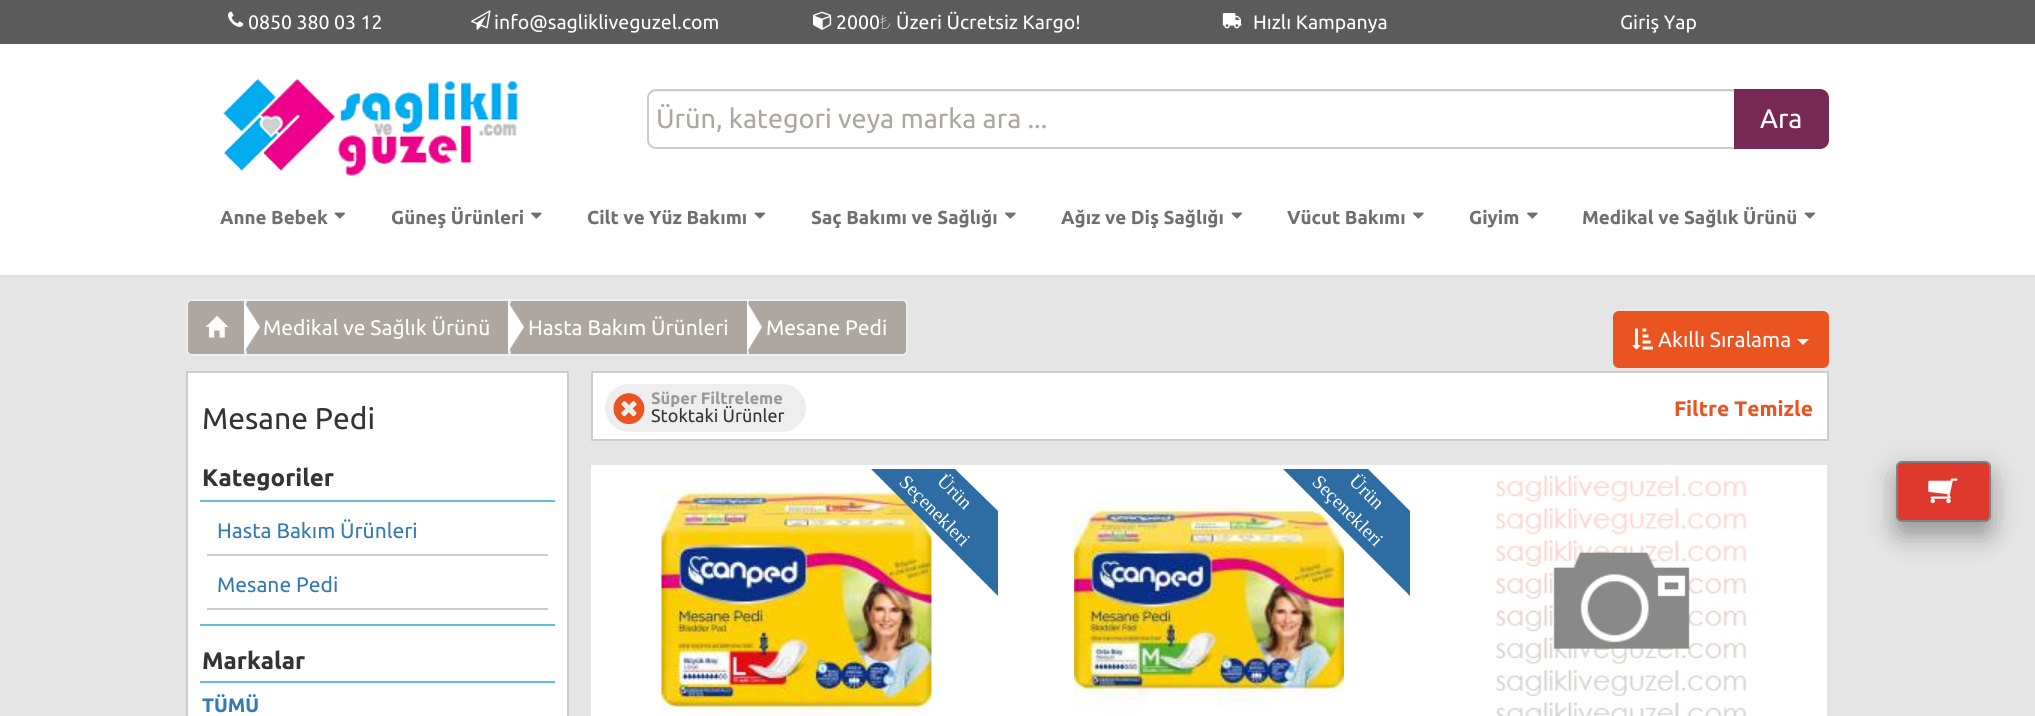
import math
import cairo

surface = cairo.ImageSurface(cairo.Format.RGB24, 2035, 716)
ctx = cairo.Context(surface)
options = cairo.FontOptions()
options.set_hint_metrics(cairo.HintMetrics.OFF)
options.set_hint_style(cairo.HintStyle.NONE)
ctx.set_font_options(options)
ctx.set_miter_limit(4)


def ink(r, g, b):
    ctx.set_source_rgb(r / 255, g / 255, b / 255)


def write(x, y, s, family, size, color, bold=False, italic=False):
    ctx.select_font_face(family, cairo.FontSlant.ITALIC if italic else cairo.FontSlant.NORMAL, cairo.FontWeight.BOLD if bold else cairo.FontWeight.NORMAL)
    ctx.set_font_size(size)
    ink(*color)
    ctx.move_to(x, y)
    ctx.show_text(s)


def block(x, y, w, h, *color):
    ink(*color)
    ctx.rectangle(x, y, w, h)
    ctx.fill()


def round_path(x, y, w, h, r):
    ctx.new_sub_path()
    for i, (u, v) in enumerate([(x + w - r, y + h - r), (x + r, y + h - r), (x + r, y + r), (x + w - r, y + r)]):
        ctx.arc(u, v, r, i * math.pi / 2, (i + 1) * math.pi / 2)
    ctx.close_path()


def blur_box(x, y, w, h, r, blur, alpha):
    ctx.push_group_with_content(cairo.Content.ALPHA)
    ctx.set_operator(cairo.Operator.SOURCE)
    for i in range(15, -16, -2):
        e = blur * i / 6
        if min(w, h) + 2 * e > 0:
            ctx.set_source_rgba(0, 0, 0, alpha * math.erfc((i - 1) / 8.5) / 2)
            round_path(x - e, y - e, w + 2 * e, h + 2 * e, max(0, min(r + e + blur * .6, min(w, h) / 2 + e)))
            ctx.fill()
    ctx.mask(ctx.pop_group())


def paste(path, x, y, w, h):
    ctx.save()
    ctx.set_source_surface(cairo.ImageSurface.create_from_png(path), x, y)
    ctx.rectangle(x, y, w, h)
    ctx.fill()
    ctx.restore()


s1 = dict(family="Ubuntu", size=19.5, color=(255, 255, 255))
s2 = dict(family="Noto Sans Thin", size=19.5, color=(255, 255, 255))
s3 = dict(family="Ubuntu", size=27, color=(174, 167, 159))
s4 = dict(family="Ubuntu", size=27, color=(255, 255, 255))
s5 = dict(family="Ubuntu", size=18.75, color=(111, 111, 111), bold=True)
s6 = dict(family="Ubuntu", size=21, color=(255, 255, 255))
s7 = dict(family="Ubuntu", size=30, color=(51, 51, 51))
s8 = dict(family="Ubuntu", size=24, color=(51, 51, 51), bold=True)
s9 = dict(family="Ubuntu", size=21, color=(51, 122, 183))
s10 = dict(family="Ubuntu", size=19.5, color=(51, 122, 183), bold=True)
s11 = dict(family="Ubuntu", size=16.5, color=(153, 153, 153), bold=True)
s12 = dict(family="Ubuntu", size=18, color=(51, 51, 51))
s13 = dict(family="Ubuntu", size=21, color=(233, 84, 32), bold=True)
s14 = dict(family="Liberation Serif", size=19.5, color=(255, 255, 255))

ink(229, 229, 229)
ctx.paint()
block(0, 0, 2035, 44, 91, 91, 91)
paste("pic1.png", 228, 11, 16, 16)
write(248, 29, "0850 380 03 12", **s1)
paste("pic2.png", 471, 10, 20, 20)
write(494, 29, "info@saglikliveguzel.com", **s1)
paste("pic3.png", 813, 11, 19, 19)
write(836, 29, "2000", **s1)
write(880, 29, "₺", **s2)
write(896, 29, "Üzeri Ücretsiz Kargo!", **s1)
paste("pic4.png", 1222, 13, 20, 16)
write(1253, 29, "Hızlı Kampanya", **s1)
write(1620, 29, "Giriş Yap", **s1)
block(0, 44, 2035, 231, 255, 255, 255)
block(0, 275, 2035, 2, 224, 224, 224)
paste("pic5.png", 223, 78, 295, 98)
ink(236, 236, 236)
ctx.new_path()
ctx.move_to(656, 92)
ctx.line_to(1732, 92)
ctx.curve_to(1737, 92, 1740, 95, 1740, 99)
ctx.line_to(1740, 98)
ctx.curve_to(1740, 94, 1736, 90, 1732, 90)
ctx.line_to(656, 90)
ctx.curve_to(652, 90, 648, 94, 648, 98)
ctx.line_to(648, 99)
ctx.curve_to(648, 95, 651, 92, 656, 92)
ctx.close_path()
ctx.fill()
round_path(648, 90, 1093, 58, 8)
ink(204, 204, 204)
ctx.stroke()
write(656, 128, "Ürün, kategori veya marka ara ...", **s3)
ink(119, 41, 83)
ctx.new_path()
ctx.move_to(1735, 90)
ctx.line_to(1820, 90)
ctx.curve_to(1824.5, 90, 1828, 93.5, 1828, 98)
ctx.line_to(1828, 140)
ctx.curve_to(1828, 144.5, 1824.5, 148, 1820, 148)
ctx.line_to(1735, 148)
ctx.close_path()
ctx.fill_preserve()
ctx.stroke()
write(1760, 128, "Ara", **s4)
write(220, 224, "Anne Bebek", **s5)
paste("pic6.png", 334, 212, 12, 7)
write(391, 224, "Güneş Ürünleri", **s5)
paste("pic7.png", 531, 212, 11, 7)
write(587, 224, "Cilt ve Yüz Bakımı", **s5)
paste("pic6.png", 754, 212, 12, 7)
write(811, 224, "Saç Bakımı ve Sağlığı", **s5)
paste("pic7.png", 1005, 212, 11, 7)
write(1061, 224, "Ağız ve Diş Sağlığı", **s5)
paste("pic6.png", 1231, 212, 12, 7)
write(1287, 224, "Vücut Bakımı", **s5)
paste("pic7.png", 1413, 212, 11, 7)
write(1469, 224, "Giyim", **s5)
paste("pic7.png", 1527, 212, 11, 7)
write(1582, 224, "Medikal ve Sağlık Ürünü", **s5)
paste("pic6.png", 1804, 212, 12, 7)
ink(174, 167, 159)
ctx.new_path()
ctx.move_to(192, 300)
ctx.line_to(245, 300)
ctx.line_to(245, 355)
ctx.line_to(192, 355)
ctx.curve_to(189, 355, 187, 353, 187, 350)
ctx.line_to(187, 305)
ctx.curve_to(187, 302, 189, 300, 192, 300)
ctx.close_path()
ctx.fill_preserve()
ink(238, 238, 238)
ctx.stroke()
ink(174, 167, 159)
ctx.rectangle(246, 300, 263, 55)
ctx.fill_preserve()
ink(238, 238, 238)
ctx.stroke()
ink(173, 173, 173)
ctx.new_path()
ctx.move_to(246, 352)
ctx.line_to(246, 302)
ctx.line_to(261, 327)
ctx.close_path()
ctx.fill()
ink(255, 255, 255)
ctx.new_path()
ctx.move_to(244, 352)
ctx.line_to(244, 302)
ctx.line_to(260, 327)
ctx.close_path()
ctx.fill()
paste("pic8.png", 205, 316, 23, 22)
ink(174, 167, 159)
ctx.rectangle(510, 300, 238, 55)
ctx.fill_preserve()
ink(238, 238, 238)
ctx.stroke()
ink(173, 173, 173)
ctx.new_path()
ctx.move_to(510, 352)
ctx.line_to(510, 302)
ctx.line_to(525, 327)
ctx.close_path()
ctx.fill()
ink(255, 255, 255)
ctx.new_path()
ctx.move_to(508, 352)
ctx.line_to(508, 302)
ctx.line_to(524, 327)
ctx.close_path()
ctx.fill()
write(263, 335, "Medikal ve Sağlık Ürünü", **s6)
ink(174, 167, 159)
ctx.new_path()
ctx.move_to(748, 300)
ctx.line_to(902, 300)
ctx.curve_to(905, 300, 907, 302, 907, 305)
ctx.line_to(907, 350)
ctx.curve_to(907, 353, 905, 355, 902, 355)
ctx.line_to(748, 355)
ctx.close_path()
ctx.fill_preserve()
ink(238, 238, 238)
ctx.stroke()
ink(173, 173, 173)
ctx.new_path()
ctx.move_to(748, 352)
ctx.line_to(748, 302)
ctx.line_to(764, 327)
ctx.close_path()
ctx.fill()
ink(255, 255, 255)
ctx.new_path()
ctx.move_to(747, 352)
ctx.line_to(747, 302)
ctx.line_to(762, 327)
ctx.close_path()
ctx.fill()
write(528, 335, "Hasta Bakım Ürünleri", **s6)
write(766, 335, "Mesane Pedi", **s6)
ctx.rectangle(187, 372, 381, 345)
ctx.fill_preserve()
ink(204, 204, 204)
ctx.stroke()
write(202, 429, "Mesane Pedi", **s7)
write(202, 486, "Kategoriler", **s8)
block(200, 500, 355, 2, 91, 192, 222)
block(200, 624, 355, 2, 91, 192, 222)
block(207, 554, 341, 2, 204, 204, 204)
write(217, 538, "Hasta Bakım Ürünleri", **s9)
block(207, 608, 341, 2, 204, 204, 204)
write(217, 592, "Mesane Pedi", **s9)
write(202, 669, "Markalar", **s8)
block(200, 681, 355, 2, 91, 192, 222)
write(202, 712, "TÜMÜ", **s10)
ink(233, 84, 32)
round_path(1614, 312, 214, 55, 5)
ctx.fill_preserve()
ctx.stroke()
paste("pic9.png", 1632, 328, 21, 22)
write(1658, 347, "Akıllı Sıralama", **s6)
ctx.new_path()
ctx.move_to(1797, 339)
ctx.line_to(1809, 339)
ctx.line_to(1803, 345)
ctx.close_path()
ctx.fill()
ctx.rectangle(592, 372, 1236, 68)
ctx.fill_preserve()
ink(204, 204, 204)
ctx.stroke()
ink(238, 238, 238)
round_path(605, 384, 201, 48, 24)
ctx.fill()
paste("pic10.png", 613, 393, 32, 32)
write(651, 404, "Süper Filtreleme", **s11)
write(651, 422, "Stoktaki Ürünler", **s12)
write(1674, 416, "Filtre Temizle", **s13)
block(591, 465, 1236, 251, 255, 255, 255)
paste("pic11.png", 661, 488, 271, 226)
ink(46, 109, 164)
ctx.new_path()
ctx.move_to(998, 596)
ctx.line_to(871, 469)
ctx.line_to(955, 469)
ctx.line_to(998, 511)
ctx.close_path()
ctx.fill()
ctx.save()
ctx.translate(936, 482)
ctx.rotate(45 * math.pi / 180)
write(0, 0, "Ürün", **s14)
ctx.restore()
ctx.save()
ctx.translate(898, 483)
ctx.rotate(45 * math.pi / 180)
write(0, 0, "Seçenekleri", **s14)
ctx.restore()
paste("pic12.png", 1074, 488, 270, 218)
ink(46, 109, 164)
ctx.new_path()
ctx.move_to(1410, 596)
ctx.line_to(1283, 469)
ctx.line_to(1368, 469)
ctx.line_to(1410, 511)
ctx.close_path()
ctx.fill()
ctx.save()
ctx.translate(1348, 482)
ctx.rotate(45 * math.pi / 180)
write(0, 0, "Ürün", **s14)
ctx.restore()
ctx.save()
ctx.translate(1311, 483)
ctx.rotate(45 * math.pi / 180)
write(0, 0, "Seçenekleri", **s14)
ctx.restore()
paste("pic13.png", 1495, 475, 251, 241)
ink(0, 0, 0)
blur_box(1896, 470, 95, 61, 6, 15, 0.19)
blur_box(1896, 476, 95, 61, 6, 12, 0.2)
ink(223, 56, 44)
round_path(1897, 462, 93, 59, 5)
ctx.fill_preserve()
ink(128, 128, 128)
ctx.stroke()
paste("pic14.png", 1928, 478, 30, 26)
surface.write_to_png("screenshot.png")
